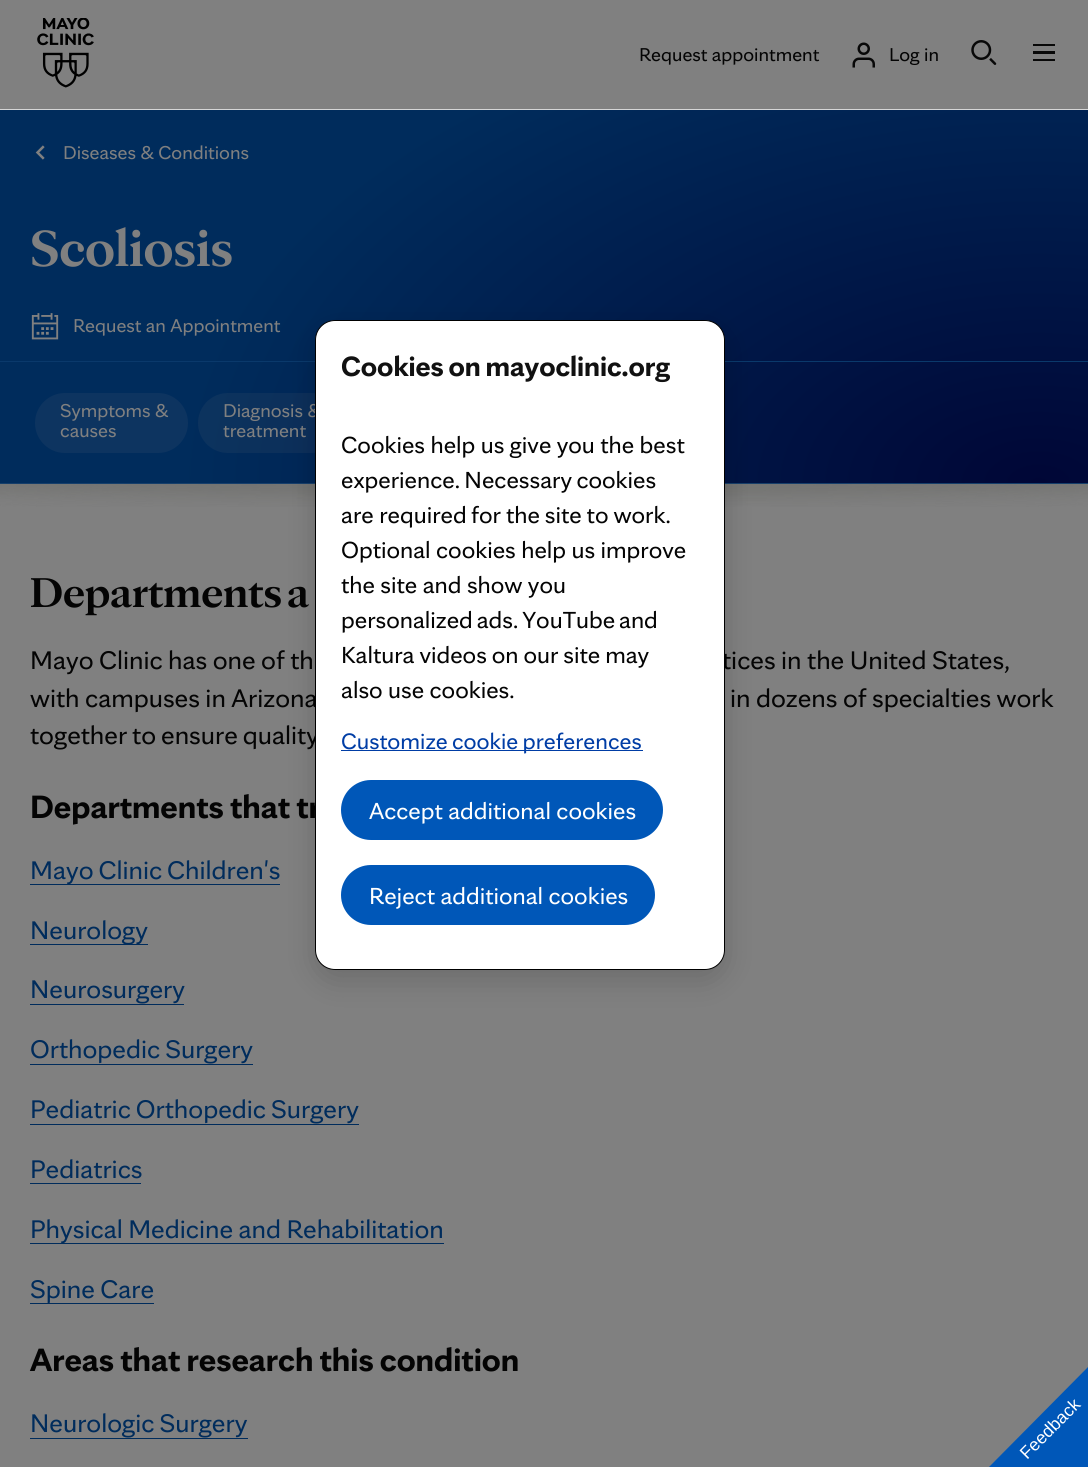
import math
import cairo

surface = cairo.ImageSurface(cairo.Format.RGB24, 1088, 1467)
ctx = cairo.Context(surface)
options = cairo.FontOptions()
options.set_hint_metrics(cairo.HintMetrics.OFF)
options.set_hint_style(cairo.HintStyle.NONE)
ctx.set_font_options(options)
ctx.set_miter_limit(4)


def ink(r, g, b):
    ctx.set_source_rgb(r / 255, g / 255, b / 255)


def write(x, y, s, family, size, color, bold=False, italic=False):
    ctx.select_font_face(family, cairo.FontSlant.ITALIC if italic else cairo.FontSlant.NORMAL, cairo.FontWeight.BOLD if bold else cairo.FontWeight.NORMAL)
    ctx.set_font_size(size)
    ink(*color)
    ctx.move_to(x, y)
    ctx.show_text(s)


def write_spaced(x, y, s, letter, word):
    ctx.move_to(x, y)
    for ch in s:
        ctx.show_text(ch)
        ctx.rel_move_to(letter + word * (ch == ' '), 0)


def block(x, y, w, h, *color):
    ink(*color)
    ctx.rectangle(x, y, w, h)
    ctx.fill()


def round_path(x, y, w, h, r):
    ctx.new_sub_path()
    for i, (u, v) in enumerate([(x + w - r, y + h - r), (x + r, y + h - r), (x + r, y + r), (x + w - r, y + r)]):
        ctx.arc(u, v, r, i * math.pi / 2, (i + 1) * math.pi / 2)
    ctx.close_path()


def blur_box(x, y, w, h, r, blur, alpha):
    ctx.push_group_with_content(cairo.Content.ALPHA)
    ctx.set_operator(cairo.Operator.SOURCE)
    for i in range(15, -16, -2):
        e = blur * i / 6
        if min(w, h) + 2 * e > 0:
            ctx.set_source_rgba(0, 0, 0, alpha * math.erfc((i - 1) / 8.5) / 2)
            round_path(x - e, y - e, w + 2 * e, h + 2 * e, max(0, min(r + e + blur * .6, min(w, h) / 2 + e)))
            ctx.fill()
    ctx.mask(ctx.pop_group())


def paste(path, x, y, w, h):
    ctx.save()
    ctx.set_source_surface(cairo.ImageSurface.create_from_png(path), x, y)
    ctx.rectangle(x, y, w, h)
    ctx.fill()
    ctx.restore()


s1 = dict(family="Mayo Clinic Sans", size=20, color=(4, 4, 4))
s2 = dict(family="Mayo Clinic Sans", size=20, color=(128, 128, 128))
s3 = dict(family="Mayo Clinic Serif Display", size=54.5, color=(128, 128, 128), bold=True)
s4 = dict(family="Mayo Clinic Sans", size=27.4, color=(0, 44, 92))
s5 = dict(family="Mayo Clinic Sans", size=25, color=(4, 4, 4))
s6 = dict(family="Mayo Clinic Sans", size=25, color=(255, 255, 255))
s7 = dict(family="Liberation Sans", size=17.5, color=(255, 255, 255))

ink(128, 128, 128)
ctx.paint()
block(0, 109, 1088, 1, 214, 214, 214)
paste("pic1.png", 37, 18, 57, 70)
write(639, 61, "Request appointment", **s1)
paste("pic2.png", 852, 42, 23, 26)
write(889, 61, "Log in", **s1)
paste("pic3.png", 971, 40, 26, 25)
block(1033, 44, 22, 2, 8, 8, 8)
block(1033, 51, 22, 3, 8, 8, 8)
block(1033, 59, 22, 2, 8, 8, 8)
gradient = cairo.RadialGradient(0, 0, 0, 0, 0, 1)
gradient.set_matrix(cairo.Matrix(1 / 868, 0, 0, 1 / 500, -1 * 1042 / 868, -1 * 483 / 500))
gradient.add_color_stop_rgba(0, 0, 0.024, 0.212, 1)
gradient.add_color_stop_rgba(1, 0, 0.173, 0.361, 1)
ctx.set_source(gradient)
ctx.rectangle(0, 110, 1088, 373)
ctx.fill()
block(0, 483, 1088, 1, 10, 57, 107)
paste("pic4.png", 35, 145, 10, 15)
write(63, 159, "Diseases & Conditions", **s2)
write(30, 266, "Scoliosis", **s3)
paste("pic5.png", 31, 313, 28, 27)
write(73, 332, "Request an Appointment", **s2)
block(0, 361, 1088, 1, 10, 57, 107)
ink(13, 52, 96)
round_path(35, 393, 153, 60, 30)
ctx.fill()
write(60, 417, "Symptoms &", **s2)
write(60, 437, "causes", **s2)
ctx.set_source_rgba(0.502, 0.502, 0.502, 0.1)
round_path(198, 393, 143, 60, 30)
ctx.fill()
write(223, 417, "Diagnosis &", **s2)
write(223, 437, "treatment", **s2)
paste("pic6.png", 0, 483, 1088, 24)
ctx.select_font_face("Mayo Clinic Serif Display", cairo.FontSlant.NORMAL, cairo.FontWeight.BOLD)
ctx.set_font_size(44.75)
ink(4, 4, 4)
write_spaced(30, 607, "Departments a", 0, -2)
ctx.select_font_face("Mayo Clinic Sans")
ctx.set_font_size(27.4)
write_spaced(30, 669, "Mayo Clinic has one of th", 0, -0.5)
write_spaced(722, 669, "tices in the United States,", 0, -0.5)
write_spaced(30, 707, "with campuses in Arizona", 0, -0.5)
write_spaced(730, 707, "in dozens of specialties work", 0, -0.5)
write_spaced(30, 744, "together to ensure quality", 0, -1)
ctx.select_font_face("Mayo Clinic Sans", cairo.FontSlant.NORMAL, cairo.FontWeight.BOLD)
ctx.set_font_size(34.75)
write_spaced(30, 818, "Departments that tr", 0, -0.5)
block(30, 884, 250, 1, 0, 44, 92)
ctx.select_font_face("Mayo Clinic Sans")
ctx.set_font_size(27.4)
write_spaced(30, 879, "Mayo Clinic Children's", 0, -1)
block(30, 944, 118, 1, 0, 44, 92)
write(30, 939, "Neurology", **s4)
write(30, 998, "Neurosurgery", **s4)
block(30, 1004, 154, 1, 0, 44, 92)
write_spaced(30, 1058, "Orthopedic Surgery", 0, -1)
block(30, 1064, 223, 1, 0, 44, 92)
write_spaced(30, 1118, "Pediatric Orthopedic Surgery", 0, -1)
block(30, 1124, 329, 1, 0, 44, 92)
write(30, 1178, "Pediatrics", **s4)
block(30, 1183, 111, 1, 0, 44, 92)
block(30, 1243, 414, 1, 0, 44, 92)
write_spaced(30, 1238, "Physical Medicine and Rehabilitation", 0, -0.5)
block(30, 1303, 124, 1, 0, 44, 92)
write_spaced(30, 1298, "Spine Care", 0, -0.5)
ctx.select_font_face("Mayo Clinic Sans", cairo.FontSlant.NORMAL, cairo.FontWeight.BOLD)
ctx.set_font_size(34.75)
ink(4, 4, 4)
write_spaced(30, 1371, "Areas that research this condition", 0, -0.5)
ctx.select_font_face("Mayo Clinic Sans")
ctx.set_font_size(27.4)
ink(0, 44, 92)
write_spaced(30, 1432, "Neurologic Surgery", 0, -1)
block(30, 1438, 218, 1, 0, 44, 92)
ink(0, 0, 0)
blur_box(315, 330, 410, 650, 20, 15, 0.16)
ink(255, 255, 255)
round_path(315.5, 320.5, 409, 649, 19.5)
ctx.fill_preserve()
ink(0, 0, 0)
ctx.set_line_width(1)
ctx.stroke()
ctx.select_font_face("Mayo Clinic Sans", cairo.FontSlant.NORMAL, cairo.FontWeight.BOLD)
ctx.set_font_size(30)
ink(17, 17, 17)
write_spaced(341, 376, "Cookies on mayoclinic.org", 0, -1)
write(341, 453, "Cookies help us give you the best", **s5)
write_spaced(341, 488, "experience. Necessary cookies", 0, -1)
write(341, 523, "are required", **s5)
write_spaced(471, 523, "for the site to work.", 0, -0.5)
write(341, 558, "Optional cookies help us improve", **s5)
write(341, 593, "the site and show you", **s5)
write_spaced(341, 628, "personalized ads. YouTube and", 0, -1.5)
write_spaced(341, 663, "Kaltura videos on our site may", 0, -0.5)
write(341, 698, "also use cookies.", **s5)
block(341, 750, 302, 1, 0, 61, 165)
ctx.set_font_size(24)
write_spaced(341, 749, "Customize cookie preferences", 0, -1)
ink(0, 87, 184)
round_path(342.5, 781.5, 319, 57, 28.5)
ctx.fill_preserve()
ctx.set_line_width(3)
ctx.stroke()
write(369, 819, "Accept additional cookies", **s6)
ink(0, 87, 184)
round_path(342.5, 866.5, 311, 57, 28.5)
ctx.fill_preserve()
ctx.stroke()
write(369, 904, "Reject additional cookies", **s6)
ink(0, 87, 184)
ctx.new_path()
ctx.move_to(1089, 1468)
ctx.line_to(988, 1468)
ctx.line_to(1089, 1366)
ctx.close_path()
ctx.fill()
ctx.save()
ctx.translate(1027, 1460)
ctx.rotate(-45 * math.pi / 180)
write(0, 0, "Feedback", **s7)
ctx.restore()
surface.write_to_png("screenshot.png")
